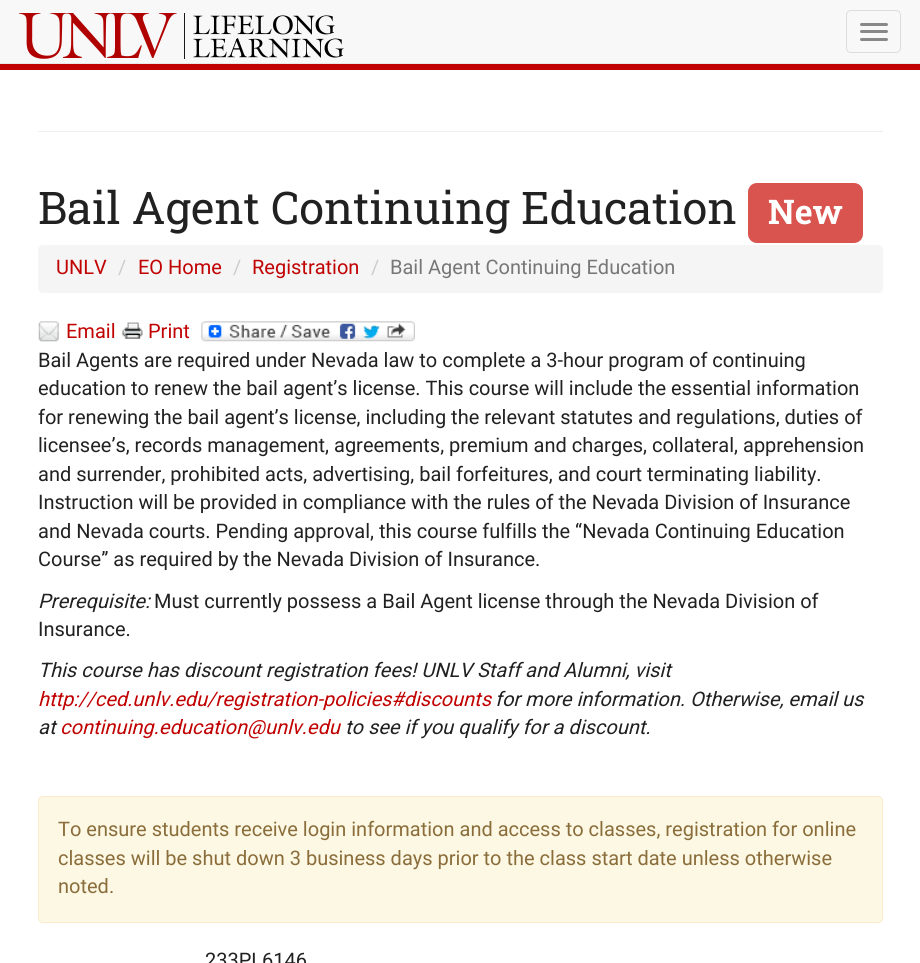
import math
import cairo

surface = cairo.ImageSurface(cairo.Format.RGB24, 920, 963)
ctx = cairo.Context(surface)
options = cairo.FontOptions()
options.set_hint_metrics(cairo.HintMetrics.OFF)
options.set_hint_style(cairo.HintStyle.NONE)
ctx.set_font_options(options)
ctx.set_miter_limit(4)


def ink(r, g, b):
    ctx.set_source_rgb(r / 255, g / 255, b / 255)


def write(x, y, s, family, size, color, bold=False, italic=False):
    ctx.select_font_face(family, cairo.FontSlant.ITALIC if italic else cairo.FontSlant.NORMAL, cairo.FontWeight.BOLD if bold else cairo.FontWeight.NORMAL)
    ctx.set_font_size(size)
    ink(*color)
    ctx.move_to(x, y)
    ctx.show_text(s)


def block(x, y, w, h, *color):
    ink(*color)
    ctx.rectangle(x, y, w, h)
    ctx.fill()


def round_path(x, y, w, h, r):
    ctx.new_sub_path()
    for i, (u, v) in enumerate([(x + w - r, y + h - r), (x + r, y + h - r), (x + r, y + r), (x + w - r, y + r)]):
        ctx.arc(u, v, r, i * math.pi / 2, (i + 1) * math.pi / 2)
    ctx.close_path()


def paste(path, x, y, w, h):
    ctx.save()
    ctx.set_source_surface(cairo.ImageSurface.create_from_png(path), x, y)
    ctx.rectangle(x, y, w, h)
    ctx.fill()
    ctx.restore()


s1 = dict(family="Roboto Slab", size=45, color=(33, 33, 33))
s2 = dict(family="Roboto Slab", size=34, color=(255, 255, 255), bold=True)
s3 = dict(family="Roboto", size=20, color=(193, 2, 2))
s4 = dict(family="Roboto", size=20, color=(204, 204, 204))
s5 = dict(family="Roboto", size=20, color=(119, 119, 119))
s6 = dict(family="Roboto", size=20, color=(33, 33, 33))
s7 = dict(family="Roboto", size=20, color=(33, 33, 33), italic=True)
s8 = dict(family="Roboto", size=20, color=(193, 2, 2), italic=True)
s9 = dict(family="Roboto", size=20, color=(138, 109, 59))

ink(255, 255, 255)
ctx.paint()
block(0, 0, 920, 63, 248, 248, 248)
block(0, 63, 920, 1, 231, 231, 231)
paste("pic1.png", 19, 13, 325, 46)
round_path(846.5, 10.5, 54, 42, 4.5)
ink(221, 221, 221)
ctx.set_line_width(1)
ctx.stroke()
ink(136, 136, 136)
round_path(860, 23, 28, 3, 1.5)
ctx.fill()
round_path(860, 30, 28, 3, 1.5)
ctx.fill()
round_path(860, 38, 28, 3, 1.5)
ctx.fill()
block(0, 64, 920, 6, 193, 2, 2)
block(38, 131, 845, 1, 238, 238, 238)
write(38, 224, "Bail Agent Continuing Education", **s1)
ink(217, 83, 79)
round_path(748, 183, 115, 60, 9)
ctx.fill()
write(768, 224, "New", **s2)
ink(245, 245, 245)
round_path(38, 245, 845, 48, 5)
ctx.fill()
write(56, 274, "UNLV", **s3)
write(118, 274, "/", **s4)
write(138, 274, "EO Home", **s3)
write(233, 274, "/", **s4)
write(252, 274, "Registration", **s3)
write(371, 274, "/", **s4)
write(390, 274, "Bail Agent Continuing Education", **s5)
paste("pic2.png", 38, 321, 21, 21)
write(66, 338, "Email", **s3)
paste("pic3.png", 122, 322, 21, 17)
write(148, 338, "Print", **s3)
paste("pic4.png", 201, 321, 214, 21)
write(38, 367, "Bail Agents are required under Nevada law to complete a 3-hour program of continuing", **s6)
write(38, 395, "education to renew the bail agent’s license. This course will include the essential information", **s6)
write(38, 424, "for renewing the bail agent’s license, including the relevant statutes and regulations, duties of", **s6)
write(38, 452, "licensee’s, records management, agreements, premium and charges, collateral, apprehension", **s6)
write(38, 481, "and surrender, prohibited acts, advertising, bail forfeitures, and court terminating liability.", **s6)
write(38, 509, "Instruction will be provided in compliance with the rules of the Nevada Division of Insurance", **s6)
write(38, 538, "and Nevada courts. Pending approval, this course fulfills the “Nevada Continuing Education", **s6)
write(38, 566, "Course” as required by the Nevada Division of Insurance.", **s6)
write(38, 608, "Prerequisite:", **s7)
write(154, 608, "Must currently possess a Bail Agent license through the Nevada Division of", **s6)
write(38, 636, "Insurance.", **s6)
write(38, 677, "This course has discount registration fees! UNLV Staff and Alumni, visit", **s7)
write(38, 706, "http://ced.unlv.edu/registration-policies#discounts", **s8)
write(495, 706, "for more information. Otherwise, email us", **s7)
write(38, 734, "at", **s7)
write(60, 734, "continuing.education@unlv.edu", **s8)
write(345, 734, "to see if you qualify for a discount.", **s7)
ink(252, 248, 227)
round_path(38.5, 796.5, 844, 126, 4.5)
ctx.fill_preserve()
ink(250, 235, 204)
ctx.stroke()
write(58, 836, "To ensure students receive login information and access to classes, registration for online", **s9)
write(58, 865, "classes will be shut down 3 business days prior to the class start date unless otherwise", **s9)
write(58, 893, "noted.", **s9)
write(205, 967, "233PL6146", **s6)
surface.write_to_png("screenshot.png")
